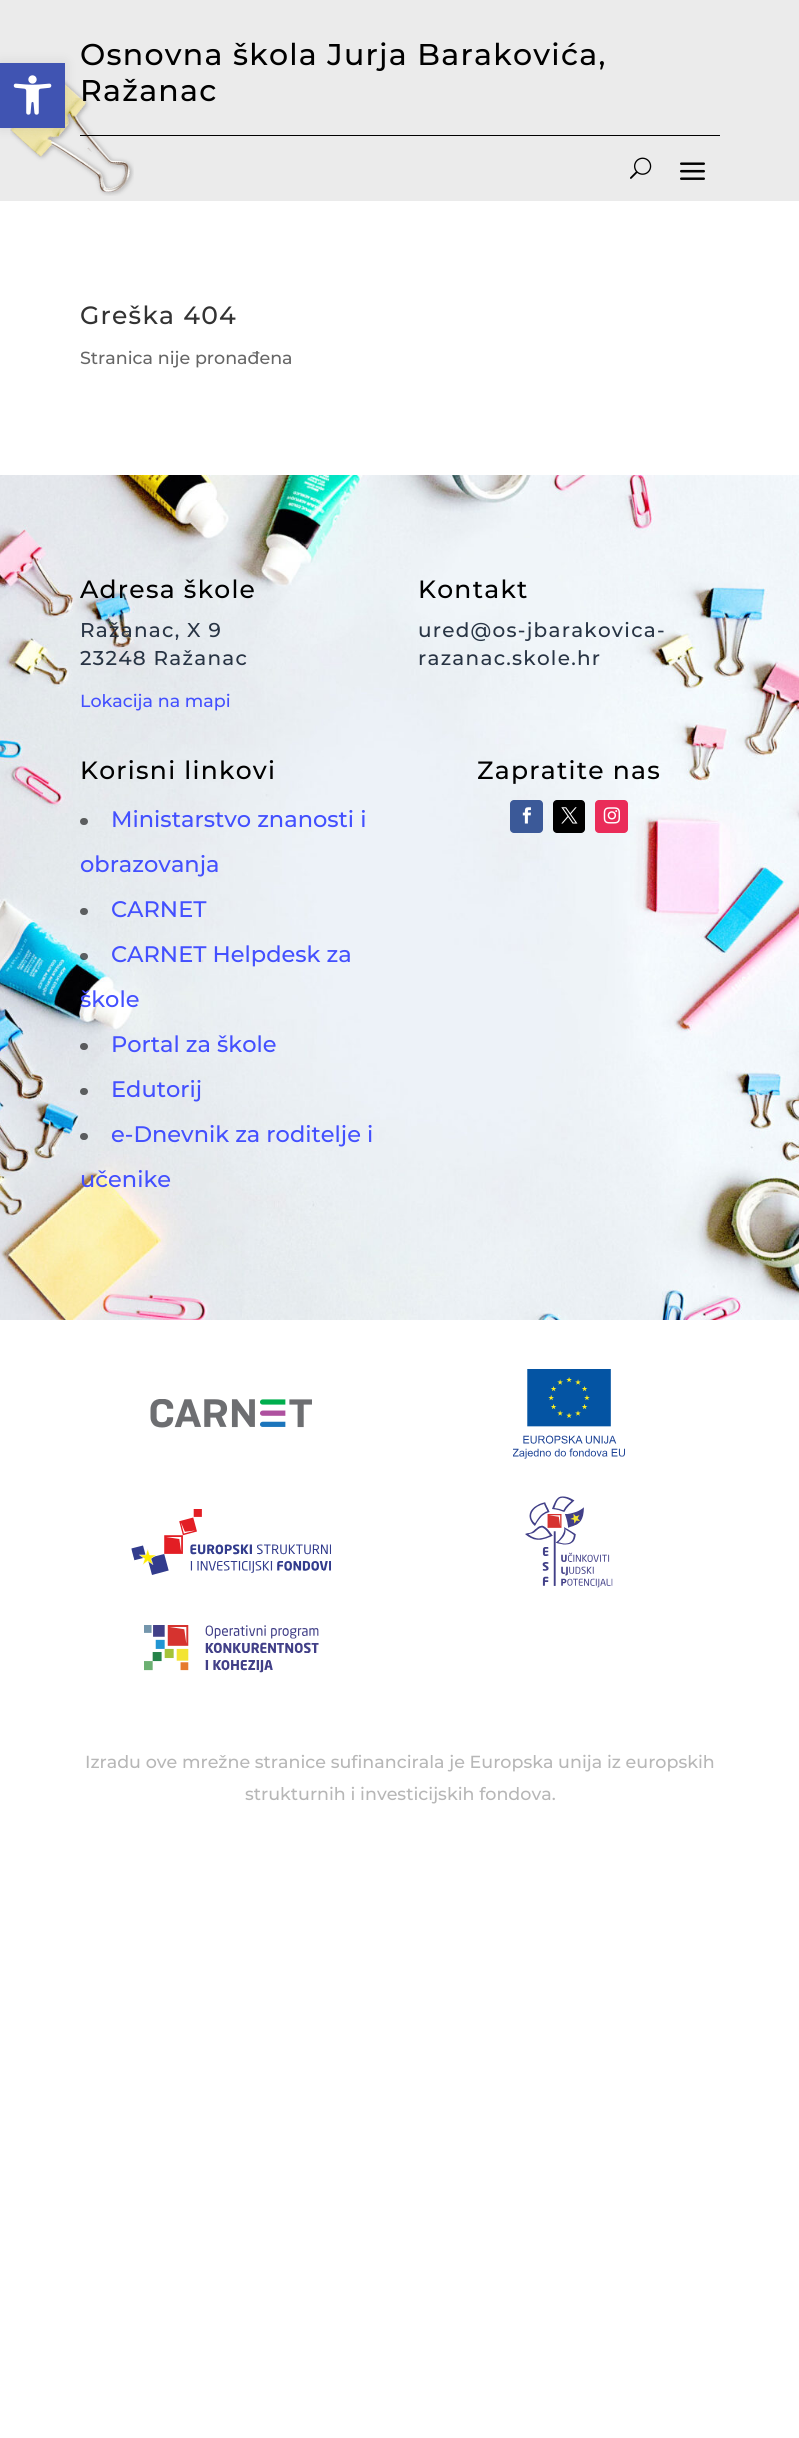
import math
import cairo

surface = cairo.ImageSurface(cairo.Format.RGB24, 799, 2438)
ctx = cairo.Context(surface)
options = cairo.FontOptions()
options.set_hint_metrics(cairo.HintMetrics.OFF)
options.set_hint_style(cairo.HintStyle.NONE)
ctx.set_font_options(options)
ctx.set_miter_limit(4)


def ink(r, g, b):
    ctx.set_source_rgb(r / 255, g / 255, b / 255)


def write(x, y, s, family, size, color, bold=False, italic=False):
    ctx.select_font_face(family, cairo.FontSlant.ITALIC if italic else cairo.FontSlant.NORMAL, cairo.FontWeight.BOLD if bold else cairo.FontWeight.NORMAL)
    ctx.set_font_size(size)
    ink(*color)
    ctx.move_to(x, y)
    ctx.show_text(s)


def write_spaced(x, y, s, letter, word):
    ctx.move_to(x, y)
    for ch in s:
        ctx.show_text(ch)
        ctx.rel_move_to(letter + word * (ch == ' '), 0)


def block(x, y, w, h, *color):
    ink(*color)
    ctx.rectangle(x, y, w, h)
    ctx.fill()


def round_path(x, y, w, h, r):
    ctx.new_sub_path()
    for i, (u, v) in enumerate([(x + w - r, y + h - r), (x + r, y + h - r), (x + r, y + r), (x + w - r, y + r)]):
        ctx.arc(u, v, r, i * math.pi / 2, (i + 1) * math.pi / 2)
    ctx.close_path()


def blur_box(x, y, w, h, r, blur, alpha):
    ctx.push_group_with_content(cairo.Content.ALPHA)
    ctx.set_operator(cairo.Operator.SOURCE)
    for i in range(15, -16, -2):
        e = blur * i / 6
        if min(w, h) + 2 * e > 0:
            ctx.set_source_rgba(0, 0, 0, alpha * math.erfc((i - 1) / 8.5) / 2)
            round_path(x - e, y - e, w + 2 * e, h + 2 * e, max(0, min(r + e + blur * .6, min(w, h) / 2 + e)))
            ctx.fill()
    ctx.mask(ctx.pop_group())


def paste(path, x, y, w, h):
    ctx.save()
    ctx.set_source_surface(cairo.ImageSurface.create_from_png(path), x, y)
    ctx.rectangle(x, y, w, h)
    ctx.fill()
    ctx.restore()


s1 = dict(family="Montserrat Medium", size=17.5, color=(102, 102, 102))
s2 = dict(family="Montserrat Medium", size=17.5, color=(67, 80, 255))
s3 = dict(family="Montserrat Medium", size=22.5, color=(67, 80, 255))
s4 = dict(family="Montserrat Medium", size=17.5, color=(183, 183, 183))

ink(255, 255, 255)
ctx.paint()
block(0, 0, 799, 201, 235, 235, 235)
paste("pic2.png", 10, 80, 124, 116)
block(80, 135, 640, 1, 0, 0, 0)
ink(0, 0, 0)
blur_box(0, 63, 65, 65, 0, 6, 0.1)
block(0, 63, 65, 65, 64, 84, 178)
paste("pic1.png", 13, 75, 39, 40)
ctx.select_font_face("Montserrat Medium")
ctx.set_font_size(30)
ink(0, 0, 0)
write_spaced(80, 65, "Osnovna škola Jurja Barakovića,", 1.25, 0)
write_spaced(80, 101, "Ražanac", 1.25, 0)
paste("pic3.png", 630, 157, 22, 22)
paste("pic4.png", 680, 162, 25, 18)
ctx.set_font_size(25)
ink(51, 51, 51)
write_spaced(80, 324, "Greška 404", 1.25, 0)
write(80, 364, "Stranica nije pronađena", **s1)
paste("pic5.png", 0, 475, 799, 845)
ctx.set_font_size(25)
ink(0, 0, 0)
write_spaced(80, 598, "Adresa škole", 1.25, 0)
ctx.set_font_size(20)
ink(40, 52, 68)
write_spaced(80, 637, "Ražanac, X 9", 1.25, 0)
write_spaced(80, 665, "23248 Ražanac", 1.25, 0)
write(80, 707, "Lokacija na mapi", **s2)
ctx.set_font_size(25)
ink(0, 0, 0)
write_spaced(418, 598, "Kontakt", 1.25, 0)
ctx.set_font_size(20)
ink(40, 52, 68)
write_spaced(418, 637, "ured@os-jbarakovica-", 1.25, 0)
write_spaced(418, 665, "razanac.skole.hr", 1.25, 0)
ctx.set_font_size(25)
ink(0, 0, 0)
write_spaced(80, 779, "Korisni linkovi", 1.25, 0)
ctx.set_source_rgba(0, 0, 0, 0.6)
round_path(80, 818, 8, 7, 3.5)
ctx.fill()
write(111, 827, "Ministarstvo znanosti i", **s3)
write(80, 872, "obrazovanja", **s3)
ctx.set_source_rgba(0, 0, 0, 0.6)
round_path(80, 908, 8, 7, 3.5)
ctx.fill()
write(111, 917, "CARNET", **s3)
ctx.set_source_rgba(0, 0, 0, 0.6)
round_path(80, 953, 8, 7, 3.5)
ctx.fill()
write(111, 962, "CARNET Helpdesk za", **s3)
write(80, 1007, "škole", **s3)
ctx.set_source_rgba(0, 0, 0, 0.6)
round_path(80, 1043, 8, 7, 3.5)
ctx.fill()
write(111, 1052, "Portal za škole", **s3)
ctx.set_source_rgba(0, 0, 0, 0.6)
round_path(80, 1088, 8, 7, 3.5)
ctx.fill()
write(111, 1097, "Edutorij", **s3)
ctx.set_source_rgba(0, 0, 0, 0.6)
round_path(80, 1133, 8, 7, 3.5)
ctx.fill()
write(111, 1142, "e-Dnevnik za roditelje i", **s3)
write(80, 1187, "učenike", **s3)
ctx.set_font_size(25)
ink(0, 0, 0)
write_spaced(477, 779, "Zapratite nas", 1.25, 0)
ink(59, 89, 152)
round_path(510, 800, 33, 33, 4)
ctx.fill()
paste("pic6.png", 522, 807, 9, 17)
ink(0, 0, 0)
round_path(553, 800, 32, 33, 4)
ctx.fill()
paste("pic7.png", 561, 807, 17, 17)
ink(234, 44, 89)
round_path(595, 800, 33, 33, 4)
ctx.fill()
paste("pic8.png", 603, 807, 17, 17)
paste("pic9.png", 150, 1399, 162, 29)
paste("pic10.png", 513, 1369, 112, 90)
paste("pic11.png", 131, 1509, 200, 66)
paste("pic12.png", 525, 1496, 88, 92)
paste("pic13.png", 144, 1625, 175, 48)
write(85, 1768, "Izradu ove mrežne stranice sufinancirala je Europska unija iz europskih", **s4)
write(245, 1800, "strukturnih i investicijskih fondova.", **s4)
surface.write_to_png("screenshot.png")
